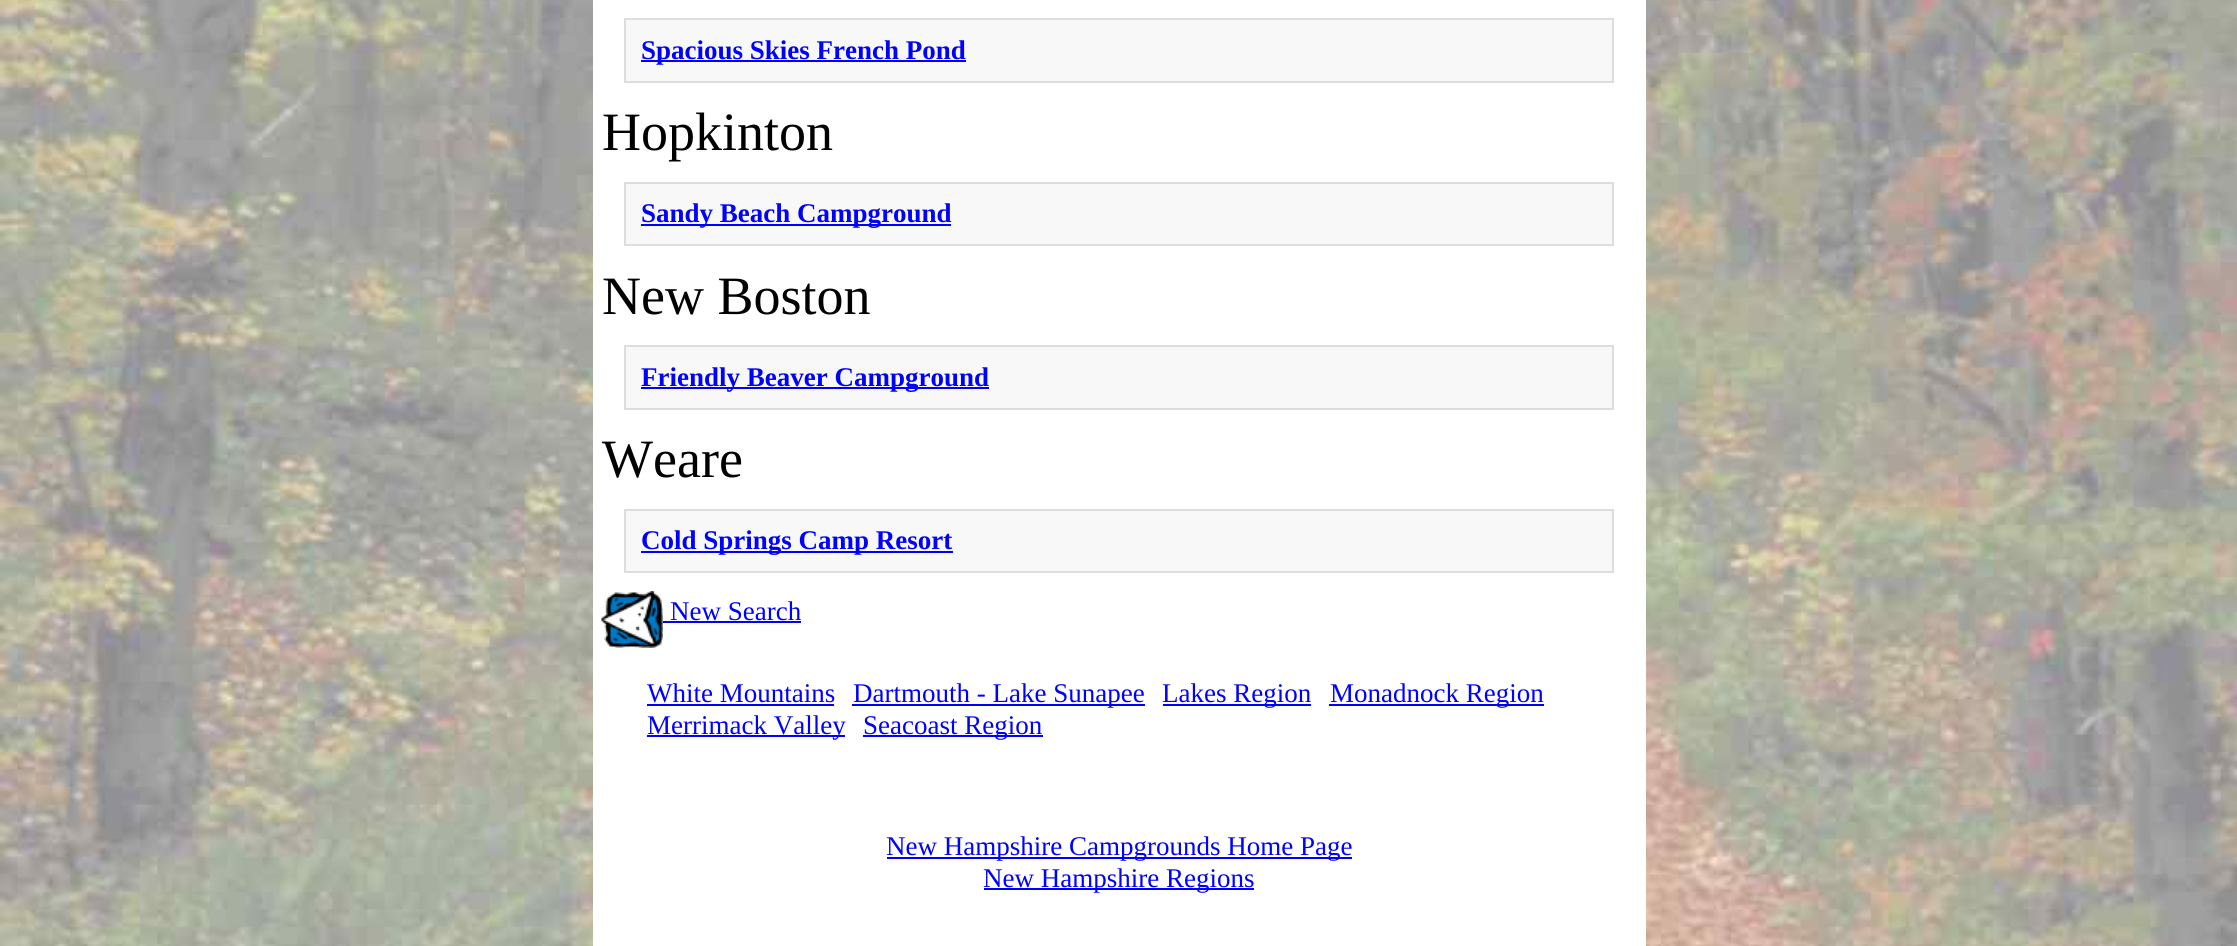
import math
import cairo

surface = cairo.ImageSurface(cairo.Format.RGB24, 2237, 946)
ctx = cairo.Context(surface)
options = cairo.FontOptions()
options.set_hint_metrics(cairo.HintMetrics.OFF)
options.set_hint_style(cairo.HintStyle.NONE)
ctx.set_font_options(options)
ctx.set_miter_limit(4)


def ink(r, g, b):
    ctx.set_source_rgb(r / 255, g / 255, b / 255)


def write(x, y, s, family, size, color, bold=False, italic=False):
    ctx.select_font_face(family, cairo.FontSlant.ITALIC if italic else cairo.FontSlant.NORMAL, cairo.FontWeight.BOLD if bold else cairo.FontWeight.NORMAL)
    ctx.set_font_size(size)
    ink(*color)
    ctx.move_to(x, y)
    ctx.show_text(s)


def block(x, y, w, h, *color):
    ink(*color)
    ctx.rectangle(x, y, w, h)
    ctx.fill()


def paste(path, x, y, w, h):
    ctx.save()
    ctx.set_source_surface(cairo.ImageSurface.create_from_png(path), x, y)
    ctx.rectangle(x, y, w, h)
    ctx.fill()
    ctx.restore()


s1 = dict(family="Liberation Serif", size=27, color=(0, 0, 255), bold=True)
s2 = dict(family="Liberation Serif", size=54, color=(0, 0, 0))
s3 = dict(family="Liberation Serif", size=27, color=(0, 0, 255))

ink(255, 255, 255)
ctx.paint()
paste("pic1.png", 0, 0, 2237, 946)
block(593, 0, 1053, 946, 255, 255, 255)
ink(248, 248, 248)
ctx.rectangle(625, 19, 988, 63)
ctx.fill_preserve()
ink(221, 221, 221)
ctx.stroke()
block(641, 60, 325, 2, 0, 0, 255)
write(641, 59, "Spacious Skies French Pond", **s1)
write(602, 150, "Hopkinton", **s2)
ink(248, 248, 248)
ctx.rectangle(625, 183, 988, 62)
ctx.fill_preserve()
ink(221, 221, 221)
ctx.stroke()
block(641, 224, 310, 2, 0, 0, 255)
write(641, 222, "Sandy Beach Campground", **s1)
write(602, 314, "New Boston", **s2)
ink(248, 248, 248)
ctx.rectangle(625, 346, 988, 63)
ctx.fill_preserve()
ink(221, 221, 221)
ctx.stroke()
block(641, 387, 348, 2, 0, 0, 255)
write(641, 386, "Friendly Beaver Campground", **s1)
write(602, 477, "Weare", **s2)
ink(248, 248, 248)
ctx.rectangle(625, 510, 988, 62)
ctx.fill_preserve()
ink(221, 221, 221)
ctx.stroke()
block(641, 551, 312, 2, 0, 0, 255)
write(641, 549, "Cold Springs Camp Resort", **s1)
paste("pic2.png", 601, 591, 62, 57)
write(670, 620, "New Search", **s3)
block(663, 621, 138, 2, 0, 0, 255)
write(647, 702, "White Mountains", **s3)
block(647, 704, 187, 2, 0, 0, 255)
block(852, 704, 293, 2, 0, 0, 255)
write(853, 702, "Dartmouth - Lake Sunapee", **s3)
block(1163, 704, 148, 2, 0, 0, 255)
write(1162, 702, "Lakes Region", **s3)
block(1329, 704, 215, 2, 0, 0, 255)
write(1330, 702, "Monadnock Region", **s3)
block(647, 735, 198, 2, 0, 0, 255)
write(647, 734, "Merrimack Valley", **s3)
block(863, 735, 180, 2, 0, 0, 255)
write(863, 734, "Seacoast Region", **s3)
block(887, 857, 465, 2, 0, 0, 255)
write(886, 855, "New Hampshire Campgrounds Home Page", **s3)
block(984, 888, 270, 2, 0, 0, 255)
write(983, 887, "New Hampshire Regions", **s3)
surface.write_to_png("screenshot.png")
